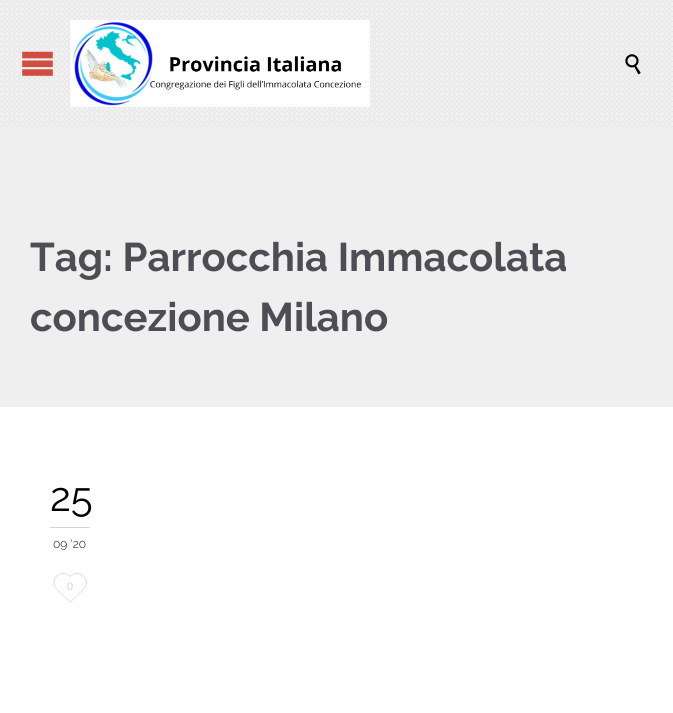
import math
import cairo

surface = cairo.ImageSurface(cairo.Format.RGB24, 673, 713)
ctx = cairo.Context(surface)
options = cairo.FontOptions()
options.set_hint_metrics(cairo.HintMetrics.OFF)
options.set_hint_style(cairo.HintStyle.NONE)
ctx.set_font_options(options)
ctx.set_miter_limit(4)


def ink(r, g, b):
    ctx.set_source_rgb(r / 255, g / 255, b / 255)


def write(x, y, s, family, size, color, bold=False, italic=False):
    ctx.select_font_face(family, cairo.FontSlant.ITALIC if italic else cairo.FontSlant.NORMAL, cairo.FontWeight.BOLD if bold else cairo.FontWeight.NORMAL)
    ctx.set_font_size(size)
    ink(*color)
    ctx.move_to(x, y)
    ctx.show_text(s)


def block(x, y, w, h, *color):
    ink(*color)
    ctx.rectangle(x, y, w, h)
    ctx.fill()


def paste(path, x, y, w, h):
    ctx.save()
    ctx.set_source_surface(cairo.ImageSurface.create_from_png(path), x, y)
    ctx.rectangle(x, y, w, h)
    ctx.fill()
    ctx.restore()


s1 = dict(family="Raleway", size=40, color=(77, 78, 83), bold=True)
s2 = dict(family="Raleway", size=40, color=(0, 0, 0))
s3 = dict(family="Raleway Light", size=12, color=(19, 15, 15))
s4 = dict(family="Liberation Sans", size=11, color=(212, 212, 212))

ink(239, 239, 239)
ctx.paint()
paste("pic1.png", 0, 0, 673, 127)
ctx.set_source_rgba(0.996, 0.988, 0.984, 0.1)
ctx.rectangle(0, 0, 673, 127)
ctx.fill()
paste("pic2.png", 22, 51, 31, 25)
paste("pic3.png", 70, 20, 300, 87)
paste("pic4.png", 625, 54, 16, 21)
write(30, 271, "Tag: Parrocchia Immacolata", **s1)
write(30, 331, "concezione Milano", **s1)
block(0, 407, 673, 306, 255, 255, 255)
block(50, 527, 40, 1, 212, 212, 212)
write(50, 511, "25", **s2)
write(53, 548, "09 '20", **s3)
paste("pic5.png", 53, 573, 34, 30)
write(67, 590, "0", **s4)
surface.write_to_png("screenshot.png")
